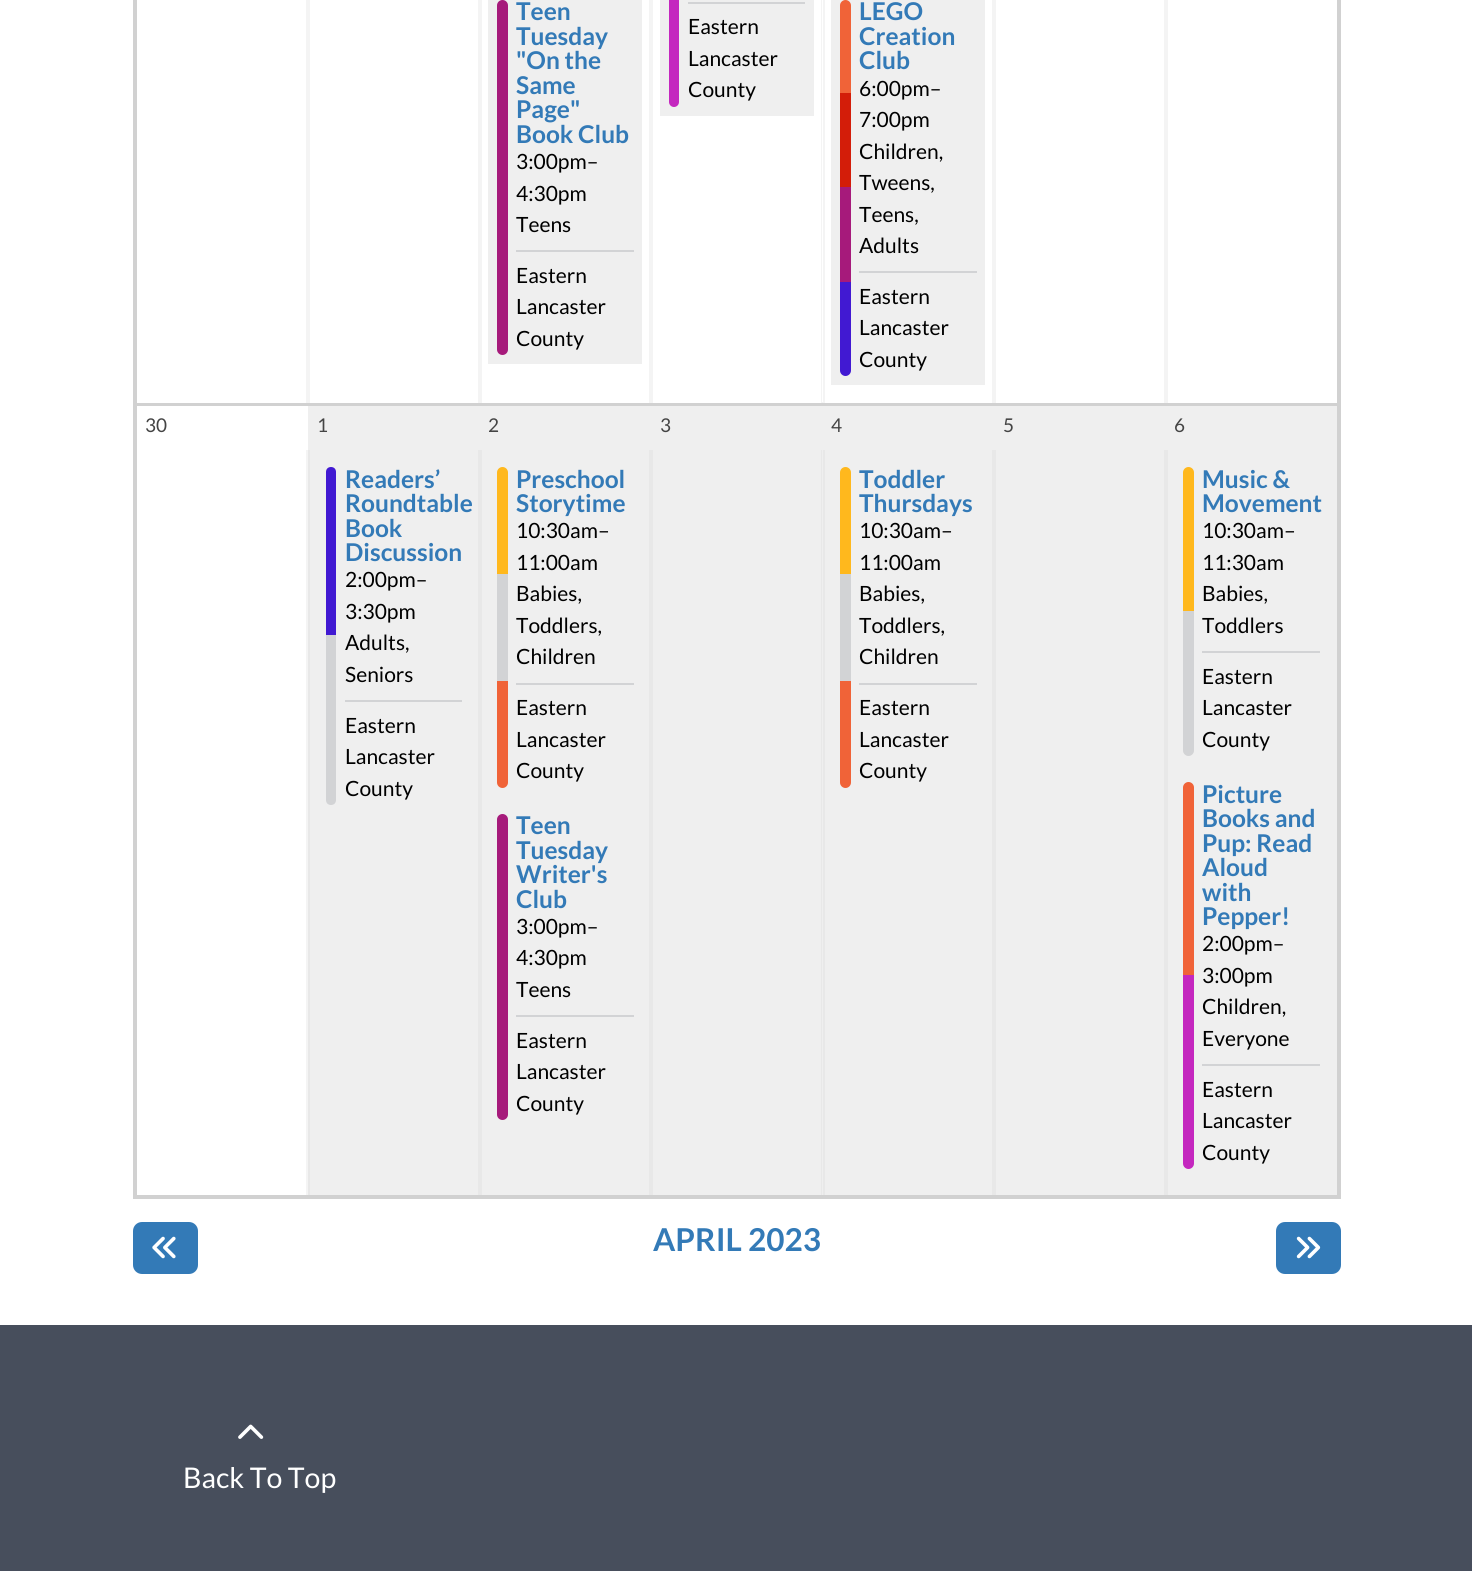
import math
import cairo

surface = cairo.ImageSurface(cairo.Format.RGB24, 1472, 1571)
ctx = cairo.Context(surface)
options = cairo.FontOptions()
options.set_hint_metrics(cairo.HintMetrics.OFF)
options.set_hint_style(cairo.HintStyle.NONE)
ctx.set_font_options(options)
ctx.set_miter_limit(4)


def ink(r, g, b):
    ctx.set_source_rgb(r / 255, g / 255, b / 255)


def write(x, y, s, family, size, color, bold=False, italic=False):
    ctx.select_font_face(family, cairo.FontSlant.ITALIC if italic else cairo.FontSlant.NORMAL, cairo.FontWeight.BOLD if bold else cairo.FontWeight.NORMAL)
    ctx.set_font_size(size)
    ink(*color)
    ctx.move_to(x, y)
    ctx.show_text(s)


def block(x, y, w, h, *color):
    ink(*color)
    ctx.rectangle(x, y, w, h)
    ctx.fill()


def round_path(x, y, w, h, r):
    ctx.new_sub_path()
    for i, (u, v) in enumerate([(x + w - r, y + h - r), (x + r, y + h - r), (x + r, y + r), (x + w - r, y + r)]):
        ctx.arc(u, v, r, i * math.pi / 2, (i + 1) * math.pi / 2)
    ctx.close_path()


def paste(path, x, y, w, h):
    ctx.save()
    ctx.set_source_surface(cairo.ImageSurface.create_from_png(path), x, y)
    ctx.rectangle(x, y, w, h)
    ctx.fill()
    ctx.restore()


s1 = dict(family="Lato", size=24.5, color=(51, 122, 183), bold=True)
s2 = dict(family="Lato", size=21, color=(0, 0, 0))
s3 = dict(family="Lato", size=19, color=(68, 68, 68))
s4 = dict(family="Lato", size=31.5, color=(51, 122, 183), bold=True)
s5 = dict(family="Lato", size=28.5, color=(255, 255, 255))

ink(255, 255, 255)
ctx.paint()
block(306, 450, 2, 745, 244, 244, 244)
ctx.rectangle(135, -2, 1204, 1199)
ink(209, 209, 209)
ctx.set_line_width(4)
ctx.stroke()
block(306, 0, 4, 403, 244, 244, 244)
ctx.new_path()
ctx.move_to(478, -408)
ctx.line_to(478, 403)
ctx.line_to(480, 403)
ctx.line_to(480, 402)
ctx.line_to(480, -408)
ctx.close_path()
ctx.fill()
block(480, 0, 2, 403, 244, 244, 244)
block(649, 0, 4, 403, 244, 244, 244)
ctx.new_path()
ctx.move_to(821, -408)
ctx.line_to(821, 403)
ctx.line_to(823, 403)
ctx.line_to(823, 402)
ctx.line_to(822, 402)
ctx.line_to(822, -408)
ctx.line_to(823, -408)
ctx.close_path()
ctx.fill()
block(823, 0, 2, 403, 244, 244, 244)
block(992, 0, 4, 403, 244, 244, 244)
ctx.new_path()
ctx.move_to(1164, -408)
ctx.line_to(1164, 403)
ctx.line_to(1166, 403)
ctx.line_to(1166, 402)
ctx.line_to(1166, -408)
ctx.close_path()
ctx.fill()
block(1166, 0, 2, 403, 244, 244, 244)
block(488, 0, 154, 364, 239, 239, 239)
ink(166, 26, 123)
round_path(497, 0, 11, 355, 5.5)
ctx.fill()
write(516, 20, "Teen", **s1)
write(516, 45, "Tuesday", **s1)
write(516, 69, "\"On the", **s1)
write(516, 94, "Same", **s1)
write(516, 118, "Page\"", **s1)
write(516, 143, "Book Club", **s1)
write(516, 169, "3:00pm–", **s2)
write(516, 201, "4:30pm", **s2)
write(516, 232, "Teens", **s2)
block(516, 250, 118, 2, 210, 211, 213)
write(516, 283, "Eastern", **s2)
write(516, 314, "Lancaster", **s2)
write(516, 346, "County", **s2)
block(660, 0, 154, 116, 239, 239, 239)
ink(196, 39, 191)
round_path(669, -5, 10, 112, 5)
ctx.fill()
block(688, 2, 117, 2, 210, 211, 213)
write(688, 34, "Eastern", **s2)
write(688, 66, "Lancaster", **s2)
write(688, 97, "County", **s2)
block(831, 0, 154, 385, 239, 239, 239)
ink(240, 99, 56)
ctx.new_path()
ctx.move_to(845.5, 0)
ctx.curve_to(848.5, 0, 851, 2.5, 851, 5.5)
ctx.line_to(851, 93)
ctx.line_to(840, 93)
ctx.line_to(840, 5.5)
ctx.curve_to(840, 2.5, 842.5, 0, 845.5, 0)
ctx.close_path()
ctx.fill()
block(840, 93, 11, 94, 211, 29, 9)
block(840, 187, 11, 95, 166, 26, 123)
ink(65, 25, 210)
ctx.new_path()
ctx.move_to(840, 282)
ctx.line_to(851, 282)
ctx.line_to(851, 370.5)
ctx.curve_to(851, 373.5, 848.5, 376, 845.5, 376)
ctx.curve_to(842.5, 376, 840, 373.5, 840, 370.5)
ctx.close_path()
ctx.fill()
write(859, 20, "LEGO", **s1)
write(859, 45, "Creation", **s1)
write(859, 69, "Club", **s1)
write(859, 96, "6:00pm–", **s2)
write(859, 127, "7:00pm", **s2)
write(859, 159, "Children,", **s2)
write(859, 190, "Tweens,", **s2)
write(859, 222, "Teens,", **s2)
write(859, 253, "Adults", **s2)
block(859, 271, 118, 2, 210, 211, 213)
write(859, 304, "Eastern", **s2)
write(859, 335, "Lancaster", **s2)
write(859, 367, "County", **s2)
block(137, 403, 1200, 3, 209, 209, 209)
write(145, 432, "30", **s3)
block(308, 406, 1029, 44, 239, 239, 239)
write(317, 432, "1", **s3)
write(488, 432, "2", **s3)
write(660, 432, "3", **s3)
write(831, 432, "4", **s3)
write(1003, 432, "5", **s3)
write(1174, 432, "6", **s3)
block(310, 450, 168, 745, 239, 239, 239)
block(478, 450, 4, 745, 232, 232, 232)
block(308, 450, 2, 745, 232, 232, 232)
ink(65, 25, 210)
ctx.new_path()
ctx.move_to(331, 467)
ctx.curve_to(334, 467, 336, 469, 336, 472)
ctx.line_to(336, 635)
ctx.line_to(326, 635)
ctx.line_to(326, 472)
ctx.curve_to(326, 469, 328, 467, 331, 467)
ctx.close_path()
ctx.fill()
ink(210, 211, 213)
ctx.new_path()
ctx.move_to(326, 635)
ctx.line_to(336, 635)
ctx.line_to(336, 800)
ctx.curve_to(336, 803, 334, 805, 331, 805)
ctx.curve_to(328, 805, 326, 803, 326, 800)
ctx.close_path()
ctx.fill()
write(345, 488, "Readers’", **s1)
write(345, 512, "Roundtable", **s1)
write(345, 537, "Book", **s1)
write(345, 561, "Discussion", **s1)
write(345, 587, "2:00pm–", **s2)
write(345, 619, "3:30pm", **s2)
write(345, 650, "Adults,", **s2)
write(345, 682, "Seniors", **s2)
block(345, 700, 117, 2, 210, 211, 213)
write(345, 733, "Eastern", **s2)
write(345, 764, "Lancaster", **s2)
write(345, 796, "County", **s2)
block(482, 450, 167, 745, 239, 239, 239)
block(649, 450, 4, 745, 232, 232, 232)
ink(255, 184, 29)
ctx.new_path()
ctx.move_to(502.5, 467)
ctx.curve_to(505.5, 467, 508, 469.5, 508, 472.5)
ctx.line_to(508, 574)
ctx.line_to(497, 574)
ctx.line_to(497, 472.5)
ctx.curve_to(497, 469.5, 499.5, 467, 502.5, 467)
ctx.close_path()
ctx.fill()
block(497, 574, 11, 107, 210, 211, 213)
ink(240, 99, 56)
ctx.new_path()
ctx.move_to(497, 681)
ctx.line_to(508, 681)
ctx.line_to(508, 782.5)
ctx.curve_to(508, 785.5, 505.5, 788, 502.5, 788)
ctx.curve_to(499.5, 788, 497, 785.5, 497, 782.5)
ctx.close_path()
ctx.fill()
write(516, 488, "Preschool", **s1)
write(516, 512, "Storytime", **s1)
write(516, 538, "10:30am–", **s2)
write(516, 570, "11:00am", **s2)
write(516, 601, "Babies,", **s2)
write(516, 633, "Toddlers,", **s2)
write(516, 664, "Children", **s2)
block(516, 683, 118, 2, 210, 211, 213)
write(516, 715, "Eastern", **s2)
write(516, 747, "Lancaster", **s2)
write(516, 778, "County", **s2)
ink(166, 26, 123)
round_path(497, 814, 11, 306, 5.5)
ctx.fill()
write(516, 834, "Teen", **s1)
write(516, 859, "Tuesday", **s1)
write(516, 883, "Writer's", **s1)
write(516, 908, "Club", **s1)
write(516, 934, "3:00pm–", **s2)
write(516, 965, "4:30pm", **s2)
write(516, 997, "Teens", **s2)
block(516, 1015, 118, 2, 210, 211, 213)
write(516, 1048, "Eastern", **s2)
write(516, 1079, "Lancaster", **s2)
write(516, 1111, "County", **s2)
block(653, 450, 170, 745, 239, 239, 239)
block(821, 450, 1, 745, 232, 232, 232)
block(825, 450, 167, 745, 239, 239, 239)
block(992, 450, 4, 745, 232, 232, 232)
block(823, 450, 2, 745, 232, 232, 232)
ink(255, 184, 29)
ctx.new_path()
ctx.move_to(845.5, 467)
ctx.curve_to(848.5, 467, 851, 469.5, 851, 472.5)
ctx.line_to(851, 574)
ctx.line_to(840, 574)
ctx.line_to(840, 472.5)
ctx.curve_to(840, 469.5, 842.5, 467, 845.5, 467)
ctx.close_path()
ctx.fill()
block(840, 574, 11, 107, 210, 211, 213)
ink(240, 99, 56)
ctx.new_path()
ctx.move_to(840, 681)
ctx.line_to(851, 681)
ctx.line_to(851, 782.5)
ctx.curve_to(851, 785.5, 848.5, 788, 845.5, 788)
ctx.curve_to(842.5, 788, 840, 785.5, 840, 782.5)
ctx.close_path()
ctx.fill()
write(859, 488, "Toddler", **s1)
write(859, 512, "Thursdays", **s1)
write(859, 538, "10:30am–", **s2)
write(859, 570, "11:00am", **s2)
write(859, 601, "Babies,", **s2)
write(859, 633, "Toddlers,", **s2)
write(859, 664, "Children", **s2)
block(859, 683, 118, 2, 210, 211, 213)
write(859, 715, "Eastern", **s2)
write(859, 747, "Lancaster", **s2)
write(859, 778, "County", **s2)
block(996, 450, 168, 745, 239, 239, 239)
block(1164, 450, 4, 745, 232, 232, 232)
block(1168, 450, 169, 745, 239, 239, 239)
ink(255, 184, 29)
ctx.new_path()
ctx.move_to(1188.5, 467)
ctx.curve_to(1191.5, 467, 1194, 469.5, 1194, 472.5)
ctx.line_to(1194, 611)
ctx.line_to(1183, 611)
ctx.line_to(1183, 472.5)
ctx.curve_to(1183, 469.5, 1185.5, 467, 1188.5, 467)
ctx.close_path()
ctx.fill()
ink(210, 211, 213)
ctx.new_path()
ctx.move_to(1183, 611)
ctx.line_to(1194, 611)
ctx.line_to(1194, 750.5)
ctx.curve_to(1194, 753.5, 1191.5, 756, 1188.5, 756)
ctx.curve_to(1185.5, 756, 1183, 753.5, 1183, 750.5)
ctx.close_path()
ctx.fill()
write(1202, 488, "Music &", **s1)
write(1202, 512, "Movement", **s1)
write(1202, 538, "10:30am–", **s2)
write(1202, 570, "11:30am", **s2)
write(1202, 601, "Babies,", **s2)
write(1202, 633, "Toddlers", **s2)
block(1202, 651, 118, 2, 210, 211, 213)
write(1202, 684, "Eastern", **s2)
write(1202, 715, "Lancaster", **s2)
write(1202, 747, "County", **s2)
ink(240, 99, 56)
ctx.new_path()
ctx.move_to(1188.5, 782)
ctx.curve_to(1191.5, 782, 1194, 784.5, 1194, 787.5)
ctx.line_to(1194, 975)
ctx.line_to(1183, 975)
ctx.line_to(1183, 787.5)
ctx.curve_to(1183, 784.5, 1185.5, 782, 1188.5, 782)
ctx.close_path()
ctx.fill()
ink(196, 39, 191)
ctx.new_path()
ctx.move_to(1183, 975)
ctx.line_to(1194, 975)
ctx.line_to(1194, 1163.5)
ctx.curve_to(1194, 1166.5, 1191.5, 1169, 1188.5, 1169)
ctx.curve_to(1185.5, 1169, 1183, 1166.5, 1183, 1163.5)
ctx.close_path()
ctx.fill()
write(1202, 803, "Picture", **s1)
write(1202, 827, "Books and", **s1)
write(1202, 852, "Pup: Read", **s1)
write(1202, 876, "Aloud", **s1)
write(1202, 901, "with", **s1)
write(1202, 925, "Pepper!", **s1)
write(1202, 951, "2:00pm–", **s2)
write(1202, 983, "3:00pm", **s2)
write(1202, 1014, "Children,", **s2)
write(1202, 1046, "Everyone", **s2)
block(1202, 1064, 118, 2, 210, 211, 213)
write(1202, 1097, "Eastern", **s2)
write(1202, 1128, "Lancaster", **s2)
write(1202, 1160, "County", **s2)
ink(51, 122, 183)
round_path(134, 1223, 63, 50, 8)
ctx.fill_preserve()
ctx.set_line_width(2)
ctx.stroke()
paste("pic1.png", 152, 1236, 24, 23)
write(653, 1251, "APRIL 2023", **s4)
round_path(1277, 1223, 63, 50, 8)
ctx.fill_preserve()
ctx.stroke()
paste("pic2.png", 1296, 1236, 25, 23)
block(0, 1325, 1472, 246, 71, 78, 92)
paste("pic3.png", 238, 1424, 26, 15)
write(183, 1488, "Back To Top", **s5)
surface.write_to_png("screenshot.png")
